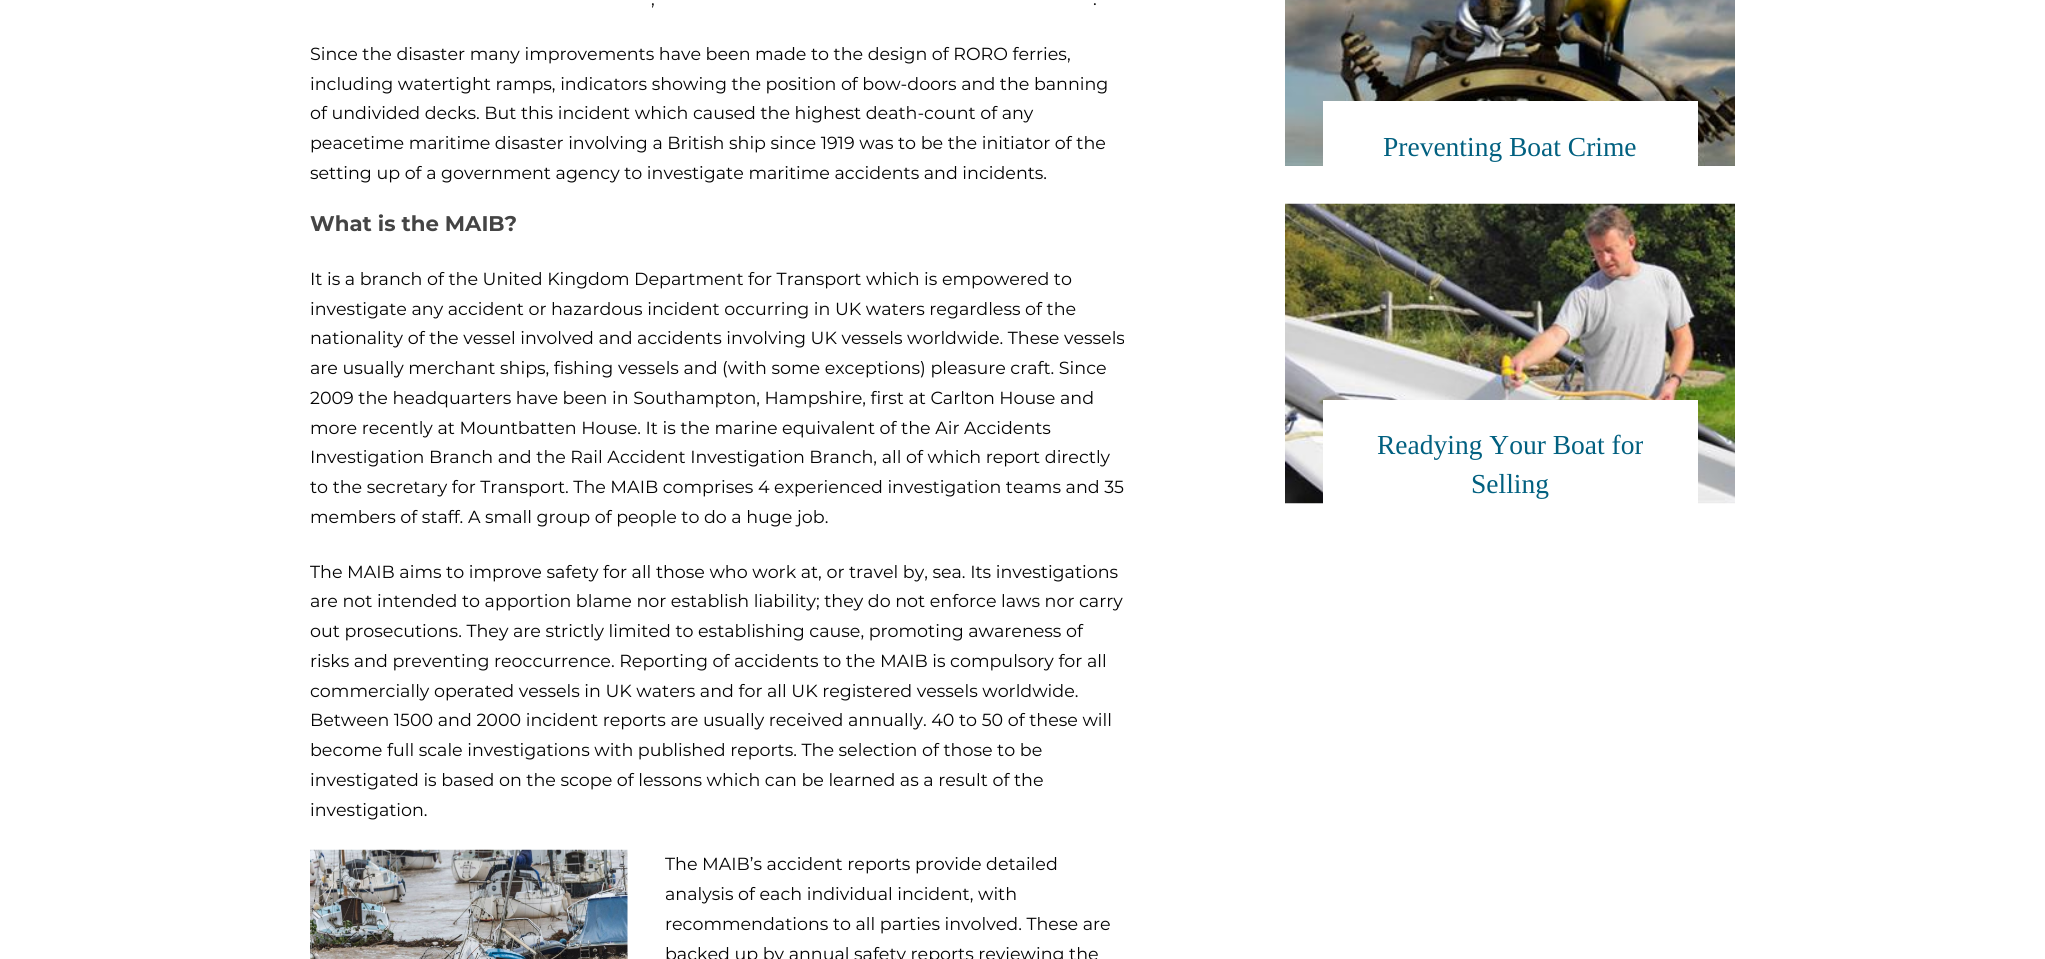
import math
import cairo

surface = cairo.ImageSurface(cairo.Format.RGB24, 2045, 959)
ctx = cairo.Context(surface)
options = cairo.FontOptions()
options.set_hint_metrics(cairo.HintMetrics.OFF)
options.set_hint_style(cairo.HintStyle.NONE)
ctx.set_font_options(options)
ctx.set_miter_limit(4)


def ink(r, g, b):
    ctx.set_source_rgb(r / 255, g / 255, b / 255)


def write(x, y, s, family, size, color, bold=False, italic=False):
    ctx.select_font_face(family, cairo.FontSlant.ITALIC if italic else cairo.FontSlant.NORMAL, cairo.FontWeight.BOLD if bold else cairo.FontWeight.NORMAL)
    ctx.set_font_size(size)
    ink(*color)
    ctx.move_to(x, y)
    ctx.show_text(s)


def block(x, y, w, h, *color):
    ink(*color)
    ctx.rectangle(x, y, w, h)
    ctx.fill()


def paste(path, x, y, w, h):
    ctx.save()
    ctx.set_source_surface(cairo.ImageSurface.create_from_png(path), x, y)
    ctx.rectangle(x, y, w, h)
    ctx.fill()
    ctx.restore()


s1 = dict(family="Montserrat", size=17.5, color=(3, 3, 3))
s2 = dict(family="Montserrat", size=21.25, color=(68, 68, 68), bold=True)
s3 = dict(family="Liberation Serif", size=27.5, color=(1, 96, 128))

ink(255, 255, 255)
ctx.paint()
write(651, 5, ",", **s1)
write(1093, 5, ".", **s1)
write(310, 60, "Since the disaster many improvements have been made to the design of RORO ferries,", **s1)
write(310, 90, "including watertight ramps, indicators showing the position of bow-doors and the banning", **s1)
write(310, 119, "of undivided decks. But this incident which caused the highest death-count of any", **s1)
write(310, 149, "peacetime maritime disaster involving a British ship since 1919 was to be the initiator of the", **s1)
write(310, 179, "setting up of a government agency to investigate maritime accidents and incidents.", **s1)
write(310, 231, "What is the MAIB?", **s2)
write(310, 285, "It is a branch of the United Kingdom Department for Transport which is empowered to", **s1)
write(310, 315, "investigate any accident or hazardous incident occurring in UK waters regardless of the", **s1)
write(310, 344, "nationality of the vessel involved and accidents involving UK vessels worldwide. These vessels", **s1)
write(310, 374, "are usually merchant ships, fishing vessels and (with some exceptions) pleasure craft. Since", **s1)
write(310, 404, "2009 the headquarters have been in Southampton, Hampshire, first at Carlton House and", **s1)
write(310, 434, "more recently at Mountbatten House. It is the marine equivalent of the Air Accidents", **s1)
write(310, 463, "Investigation Branch and the Rail Accident Investigation Branch, all of which report directly", **s1)
write(310, 493, "to the secretary for Transport. The MAIB comprises 4 experienced investigation teams and 35", **s1)
write(310, 523, "members of staff. A small group of people to do a huge job.", **s1)
write(310, 578, "The MAIB aims to improve safety for all those who work at, or travel by, sea. Its investigations", **s1)
write(310, 607, "are not intended to apportion blame nor establish liability; they do not enforce laws nor carry", **s1)
write(310, 637, "out prosecutions. They are strictly limited to establishing cause, promoting awareness of", **s1)
write(310, 667, "risks and preventing reoccurrence. Reporting of accidents to the MAIB is compulsory for all", **s1)
write(310, 697, "commercially operated vessels in UK waters and for all UK registered vessels worldwide.", **s1)
write(310, 726, "Between 1500 and 2000 incident reports are usually received annually. 40 to 50 of these will", **s1)
write(310, 756, "become full scale investigations with published reports. The selection of those to be", **s1)
write(310, 786, "investigated is based on the scope of lessons which can be learned as a result of the", **s1)
write(310, 816, "investigation.", **s1)
paste("pic1.png", 310, 849, 318, 110)
write(665, 870, "The MAIB’s accident reports provide detailed", **s1)
write(665, 900, "analysis of each individual incident, with", **s1)
write(665, 930, "recommendations to all parties involved. These are", **s1)
write(665, 960, "backed up by annual safety reports reviewing the", **s1)
paste("pic2.png", 1285, 0, 450, 166)
block(1323, 101, 375, 65, 255, 255, 255)
write(1383, 156, "Preventing Boat Crime", **s3)
paste("pic3.png", 1285, 203, 450, 301)
block(1323, 400, 375, 104, 255, 255, 255)
write(1377, 454, "Readying Your Boat for", **s3)
write(1471, 493, "Selling", **s3)
surface.write_to_png("screenshot.png")
